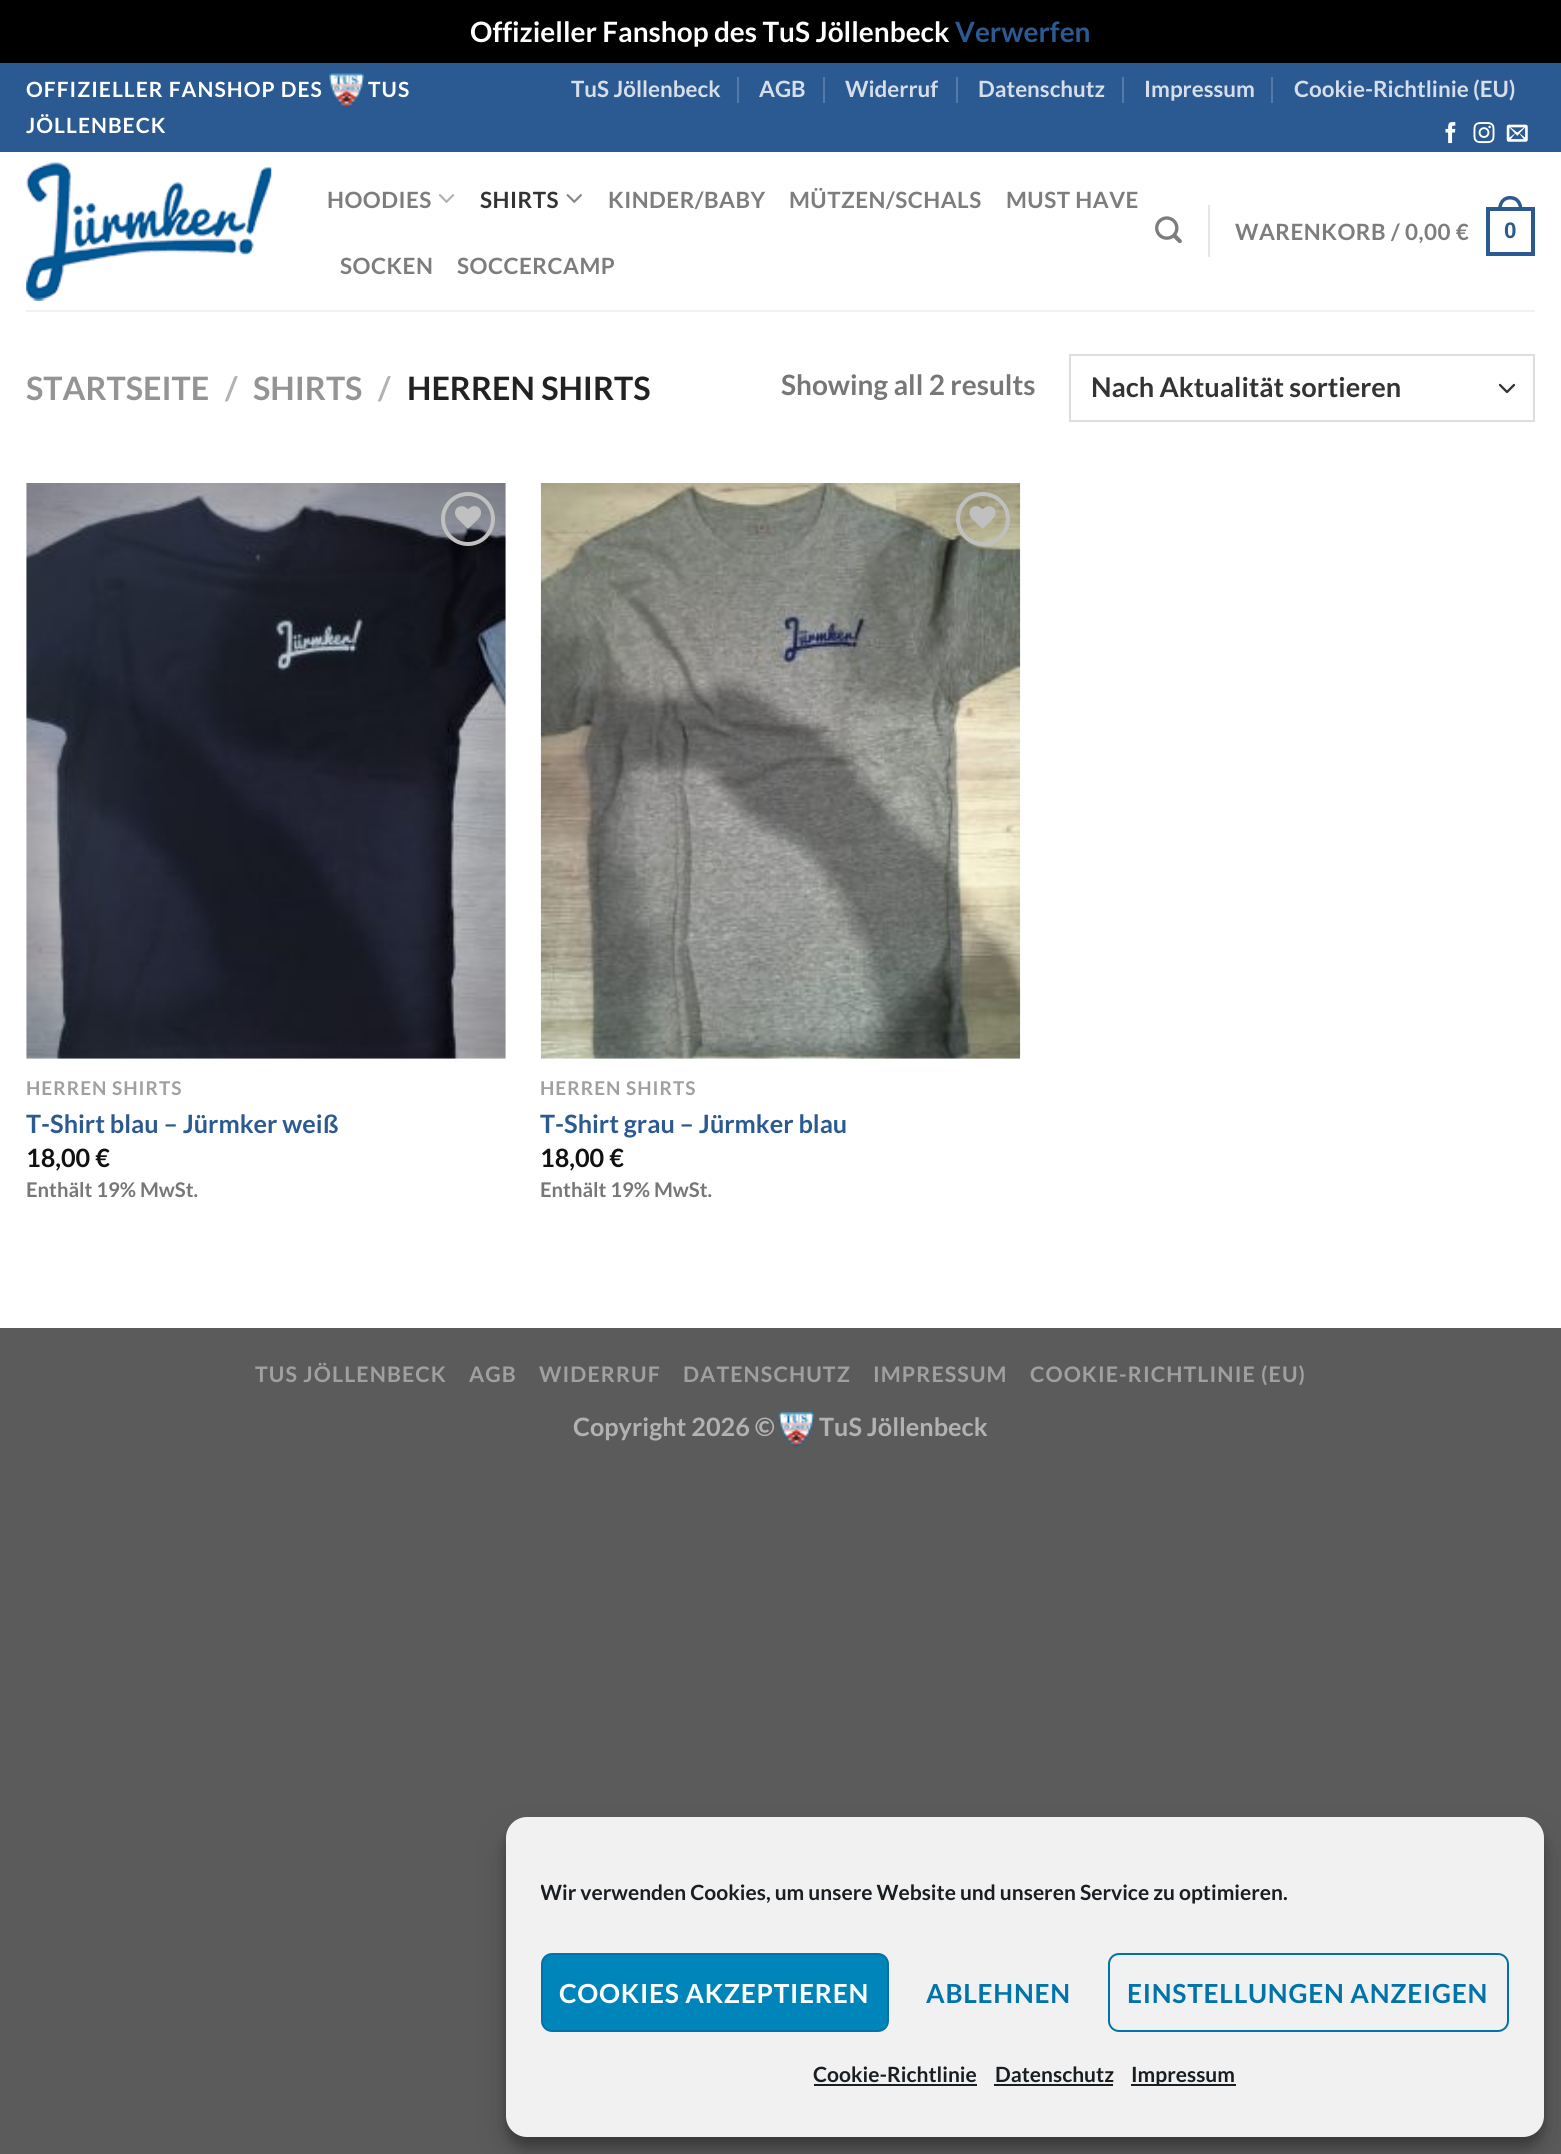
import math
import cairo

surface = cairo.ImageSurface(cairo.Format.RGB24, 1561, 2154)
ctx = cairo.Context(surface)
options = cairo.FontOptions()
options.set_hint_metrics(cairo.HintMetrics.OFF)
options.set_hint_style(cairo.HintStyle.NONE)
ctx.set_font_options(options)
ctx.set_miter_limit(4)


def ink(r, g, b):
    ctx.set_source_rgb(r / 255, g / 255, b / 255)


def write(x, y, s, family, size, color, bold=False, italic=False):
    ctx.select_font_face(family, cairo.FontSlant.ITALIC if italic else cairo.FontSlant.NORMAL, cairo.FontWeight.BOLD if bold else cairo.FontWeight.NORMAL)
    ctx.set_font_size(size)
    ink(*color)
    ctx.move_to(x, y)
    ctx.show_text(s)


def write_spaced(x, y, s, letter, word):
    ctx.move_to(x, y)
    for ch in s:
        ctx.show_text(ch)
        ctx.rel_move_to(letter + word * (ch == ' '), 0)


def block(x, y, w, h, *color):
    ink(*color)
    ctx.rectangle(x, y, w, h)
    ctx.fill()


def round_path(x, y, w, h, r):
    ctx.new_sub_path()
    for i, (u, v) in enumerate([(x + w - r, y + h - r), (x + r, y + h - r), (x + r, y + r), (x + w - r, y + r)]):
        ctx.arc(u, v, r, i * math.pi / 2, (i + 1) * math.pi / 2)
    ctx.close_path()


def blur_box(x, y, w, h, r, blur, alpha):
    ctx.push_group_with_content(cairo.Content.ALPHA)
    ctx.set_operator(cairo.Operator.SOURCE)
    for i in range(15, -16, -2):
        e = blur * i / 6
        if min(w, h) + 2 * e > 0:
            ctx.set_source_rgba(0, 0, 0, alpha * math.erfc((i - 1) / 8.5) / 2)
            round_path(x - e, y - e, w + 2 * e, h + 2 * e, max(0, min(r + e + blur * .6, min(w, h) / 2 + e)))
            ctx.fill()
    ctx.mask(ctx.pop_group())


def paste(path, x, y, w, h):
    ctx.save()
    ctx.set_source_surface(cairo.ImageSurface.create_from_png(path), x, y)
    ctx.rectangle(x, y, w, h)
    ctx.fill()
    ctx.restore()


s1 = dict(family="Lato", size=28, color=(255, 255, 255), bold=True)
s2 = dict(family="Lato", size=28, color=(43, 89, 145), bold=True)
s3 = dict(family="Lato", size=22.4, color=(213, 222, 233), bold=True)
s4 = dict(family="Lato", size=32.25, color=(148, 148, 148), bold=True)
s5 = dict(family="Lato", size=32.25, color=(178, 178, 178), bold=True)
s6 = dict(family="Lato", size=32.25, color=(34, 34, 34), bold=True)
s7 = dict(family="Lato", size=28, color=(119, 119, 119), bold=True)
s8 = dict(family="Lato", size=27.2, color=(51, 51, 51), bold=True)
s9 = dict(family="Lato", size=25.25, color=(43, 89, 145), bold=True)
s10 = dict(family="Lato", size=25.25, color=(17, 17, 17), bold=True)
s11 = dict(family="Lato", size=20.25, color=(119, 119, 119), bold=True)
s12 = dict(family="Lato", size=25.25, color=(178, 178, 178), bold=True)
s13 = dict(family="Lato", size=21, color=(25, 30, 35), bold=True)

ink(91, 91, 91)
ctx.paint()
block(0, 0, 1561, 63, 0, 0, 0)
write(470, 42, "Offizieller Fanshop des TuS Jöllenbeck", **s1)
write(955, 42, "Verwerfen", **s2)
block(0, 152, 1561, 1176, 255, 255, 255)
block(0, 63, 1561, 89, 43, 89, 145)
ctx.set_font_size(21)
ink(255, 255, 255)
write_spaced(26, 97, "OFFIZIELLER FANSHOP DES", 1.05, 0)
paste("pic1.png", 329, 73, 35, 36)
write_spaced(368, 97, "TUS", 1.05, 0)
write_spaced(26, 133, "JÖLLENBECK", 1.05, 0)
write(571, 97, "TuS Jöllenbeck", **s3)
block(737, 77, 2, 26, 85, 122, 167)
write(759, 97, "AGB", **s3)
block(823, 77, 2, 26, 85, 122, 167)
write(845, 97, "Widerruf", **s3)
block(956, 77, 2, 26, 85, 122, 167)
write(978, 97, "Datenschutz", **s3)
block(1122, 77, 2, 26, 85, 122, 167)
write(1144, 97, "Impressum", **s3)
block(1271, 77, 2, 26, 85, 122, 167)
write(1294, 97, "Cookie-Richtlinie (EU)", **s3)
paste("pic2.png", 1445, 122, 11, 22)
paste("pic3.png", 1473, 122, 22, 22)
paste("pic4.png", 1506, 124, 22, 18)
paste("pic5.png", 26, 162, 246, 139)
ink(125, 125, 125)
write_spaced(327, 208, "HOODIES", 0.5, 0)
paste("pic6.png", 438, 194, 17, 9)
ink(51, 51, 51)
write_spaced(480, 208, "SHIRTS", 0.5, 0)
paste("pic7.png", 566, 194, 16, 9)
ink(125, 125, 125)
write_spaced(608, 208, "KINDER/BABY", 0.5, 0)
write_spaced(789, 208, "MÜTZEN/SCHALS", 0.5, 0)
write_spaced(1006, 208, "MUST HAVE", 0.5, 0)
write_spaced(340, 274, "SOCKEN", 0.5, 0)
write_spaced(457, 274, "SOCCERCAMP", 0.5, 0)
paste("pic8.png", 1155, 216, 27, 28)
block(1208, 205, 2, 52, 230, 230, 230)
ink(125, 125, 125)
write_spaced(1235, 240, "WARENKORB / 0,00 €", 0.5, 0)
ctx.rectangle(1488, 209, 45, 45)
ink(43, 89, 145)
ctx.set_line_width(4)
ctx.stroke()
ctx.set_fill_rule(cairo.FillRule.EVEN_ODD)
ctx.new_path()
ctx.move_to(1510, 196)
ctx.curve_to(1518.5, 196, 1522.5, 202.5, 1522.5, 210)
ctx.line_to(1498, 210)
ctx.curve_to(1498, 202.5, 1502, 196, 1510, 196)
ctx.close_path()
ctx.move_to(1510, 199.5)
ctx.curve_to(1516.5, 199.5, 1519, 204.5, 1519, 210)
ctx.line_to(1501.5, 210)
ctx.curve_to(1501.5, 204.5, 1504, 199.5, 1510, 199.5)
ctx.close_path()
ctx.fill()
ctx.select_font_face("Liberation Sans", cairo.FontSlant.NORMAL, cairo.FontWeight.BOLD)
write_spaced(1504, 238, "0", 0.5, 0)
block(26, 310, 1509, 2, 241, 241, 241)
write(26, 400, "STARTSEITE", **s4)
write(225, 400, "/", **s5)
write(253, 400, "SHIRTS", **s4)
write(378, 400, "/", **s5)
write(407, 400, "HERREN SHIRTS", **s6)
write(781, 395, "Showing all 2 results", **s7)
ctx.new_path()
ctx.move_to(1500, 385)
ctx.line_to(1507, 392)
ctx.line_to(1514, 385)
ink(51, 51, 51)
ctx.set_line_width(2.3)
ctx.set_line_cap(cairo.LineCap.ROUND)
ctx.set_line_join(cairo.LineJoin.ROUND)
ctx.stroke()
ctx.rectangle(1070, 355, 464, 66)
ink(221, 221, 221)
ctx.set_line_width(2)
ctx.set_line_cap(cairo.LineCap.BUTT)
ctx.set_line_join(cairo.LineJoin.MITER)
ctx.stroke()
write(1091, 397, "Nach Aktualität sortieren", **s8)
paste("pic9.png", 26, 483, 480, 576)
ctx.arc(468, 519, 25, 0, 2 * math.pi)
ink(192, 192, 192)
ctx.set_line_width(4)
ctx.stroke()
paste("pic10.png", 455, 506, 26, 23)
ctx.set_font_size(19)
ink(160, 160, 160)
write_spaced(26, 1095, "HERREN SHIRTS", 1, 0)
write(26, 1133, "T-Shirt blau – Jürmker weiß", **s9)
write(26, 1167, "18,00 €", **s10)
write(26, 1197, "Enthält 19% MwSt.", **s11)
paste("pic11.png", 540, 483, 481, 576)
ctx.arc(983, 519, 25, 0, 2 * math.pi)
ink(192, 192, 192)
ctx.stroke()
paste("pic12.png", 969, 506, 27, 23)
ctx.set_font_size(19)
ink(160, 160, 160)
write_spaced(540, 1095, "HERREN SHIRTS", 1, 0)
write(540, 1133, "T-Shirt grau – Jürmker blau", **s9)
write(540, 1167, "18,00 €", **s10)
write(540, 1197, "Enthält 19% MwSt.", **s11)
ctx.set_font_size(21.4)
ink(160, 160, 160)
write_spaced(255, 1382, "TUS JÖLLENBECK", 1.1, 0)
write_spaced(469, 1382, "AGB", 1.1, 0)
write_spaced(539, 1382, "WIDERRUF", 1.1, 0)
write_spaced(683, 1382, "DATENSCHUTZ", 1.1, 0)
write_spaced(873, 1382, "IMPRESSUM", 1.1, 0)
write_spaced(1030, 1382, "COOKIE-RICHTLINIE (EU)", 1.1, 0)
write(573, 1436, "Copyright 2026 ©", **s12)
paste("pic13.png", 778, 1412, 36, 36)
write(819, 1436, "TuS Jöllenbeck", **s12)
ink(0, 0, 0)
blur_box(506, 1827, 1038, 320, 21, 5, 0.23)
blur_box(506, 1834, 1038, 320, 21, 17.5, 0.19)
ink(241, 241, 241)
round_path(506, 1817, 1038, 320, 21)
ctx.fill()
ctx.save()
ctx.set_fill_rule(cairo.FillRule.WINDING)
ctx.rectangle(541, 1878, 968, 40)
ctx.clip()
write(540, 1900, "Wir verwenden Cookies, um unsere Website und unseren Service zu optimieren.", **s13)
ctx.restore()
ink(0, 133, 186)
round_path(542, 1954, 346, 77, 10)
ctx.fill_preserve()
ink(0, 115, 170)
ctx.set_line_width(2)
ctx.stroke()
ctx.set_font_size(26.25)
ink(255, 255, 255)
write_spaced(559, 2003, "COOKIES AKZEPTIEREN", 0.75, 0)
ink(0, 115, 170)
write_spaced(926, 2003, "ABLEHNEN", 0.75, 0)
round_path(1109, 1954, 399, 77, 10)
ctx.stroke()
write_spaced(1127, 2003, "EINSTELLUNGEN ANZEIGEN", 0.75, 0)
write(813, 2082, "Cookie-Richtlinie", **s13)
block(814, 2084, 163, 2, 25, 30, 35)
write(995, 2082, "Datenschutz", **s13)
block(994, 2084, 119, 2, 25, 30, 35)
block(1131, 2084, 105, 2, 25, 30, 35)
write(1131, 2082, "Impressum", **s13)
surface.write_to_png("screenshot.png")
